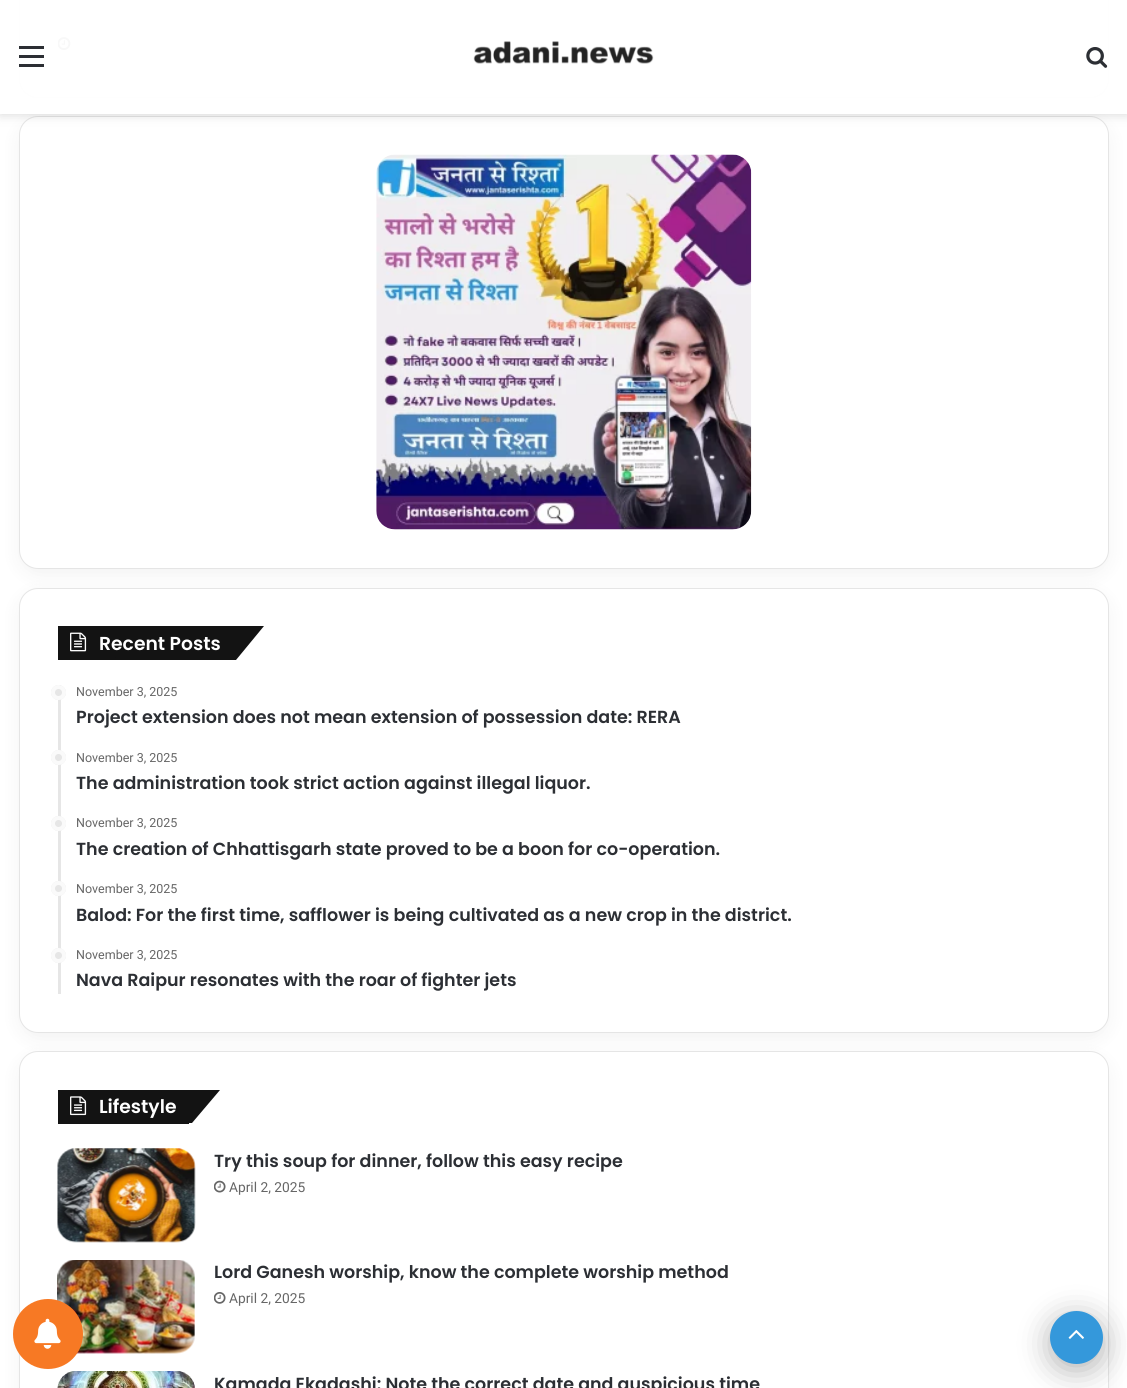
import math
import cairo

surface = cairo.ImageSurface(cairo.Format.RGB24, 1127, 1388)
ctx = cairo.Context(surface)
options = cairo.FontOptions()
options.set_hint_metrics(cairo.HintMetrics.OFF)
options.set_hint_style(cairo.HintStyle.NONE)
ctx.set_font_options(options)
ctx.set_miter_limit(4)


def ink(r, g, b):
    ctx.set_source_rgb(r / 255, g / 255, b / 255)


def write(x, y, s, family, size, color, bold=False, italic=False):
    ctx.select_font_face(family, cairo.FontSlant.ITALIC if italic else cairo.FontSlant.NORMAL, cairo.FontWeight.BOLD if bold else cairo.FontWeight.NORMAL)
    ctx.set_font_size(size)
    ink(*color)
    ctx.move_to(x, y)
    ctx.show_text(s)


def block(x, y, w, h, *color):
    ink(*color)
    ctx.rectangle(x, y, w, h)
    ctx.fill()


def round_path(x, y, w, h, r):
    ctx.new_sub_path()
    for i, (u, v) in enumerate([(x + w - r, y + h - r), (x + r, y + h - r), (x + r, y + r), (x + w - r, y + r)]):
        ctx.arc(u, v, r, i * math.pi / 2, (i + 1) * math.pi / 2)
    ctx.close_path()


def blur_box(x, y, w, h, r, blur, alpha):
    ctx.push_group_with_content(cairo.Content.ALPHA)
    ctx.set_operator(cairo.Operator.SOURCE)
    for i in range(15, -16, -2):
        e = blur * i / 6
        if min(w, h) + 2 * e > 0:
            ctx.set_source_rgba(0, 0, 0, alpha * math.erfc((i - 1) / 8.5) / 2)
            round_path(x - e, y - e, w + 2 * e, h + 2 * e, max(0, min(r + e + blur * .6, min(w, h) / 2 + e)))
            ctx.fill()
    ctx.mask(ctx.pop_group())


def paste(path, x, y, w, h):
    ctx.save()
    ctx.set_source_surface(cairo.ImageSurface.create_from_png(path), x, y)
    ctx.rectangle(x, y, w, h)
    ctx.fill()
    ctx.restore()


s1 = dict(family="Poppins SemiBold", size=18.75, color=(255, 255, 255))
s2 = dict(family="Roboto", size=12.5, color=(102, 102, 102))
s3 = dict(family="Poppins SemiBold", size=17.5, color=(44, 47, 52))
s4 = dict(family="Roboto", size=13.75, color=(102, 102, 102))

ink(255, 255, 255)
ctx.paint()
ink(0, 0, 0)
blur_box(19, -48, 1090, 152, 19, 9.5, 0.05)
ink(255, 255, 255)
round_path(19.5, -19.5, 1089, 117, 18.5)
ctx.fill_preserve()
ink(229, 229, 229)
ctx.set_line_width(1)
ctx.stroke()
ink(0, 0, 0)
blur_box(19, 123, 1090, 452, 19, 9.5, 0.05)
ink(255, 255, 255)
round_path(19.5, 116.5, 1089, 452, 18.5)
ctx.fill_preserve()
ink(229, 229, 229)
ctx.stroke()
ink(0, 0, 0)
blur_box(19, 594, 1090, 445, 19, 9.5, 0.05)
ink(255, 255, 255)
round_path(19.5, 588.5, 1089, 444, 18.5)
ctx.fill_preserve()
ink(229, 229, 229)
ctx.stroke()
ink(0, 0, 0)
blur_box(19, 1058, 1090, 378, 19, 9.5, 0.05)
ink(255, 255, 255)
round_path(19.5, 1051.5, 1089, 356, 18.5)
ctx.fill_preserve()
ink(229, 229, 229)
ctx.stroke()
paste("pic10.png", 57, 1260, 138, 94)
ink(247, 121, 36)
ctx.arc(48, 1334, 35, 0, 2 * math.pi)
ctx.fill()
paste("pic1.png", 34, 1318, 27, 31)
paste("pic4.png", 58, 37, 13, 13)
ctx.save()
ctx.set_fill_rule(cairo.FillRule.EVEN_ODD)
ctx.new_path()
ctx.move_to(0, 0)
ctx.line_to(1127, 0)
ctx.line_to(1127, 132)
ctx.line_to(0, 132)
ctx.close_path()
ctx.move_to(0, 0)
ctx.line_to(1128, 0)
ctx.line_to(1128, 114)
ctx.line_to(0, 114)
ctx.close_path()
ctx.clip()
ink(99, 99, 99)
blur_box(0, 3, 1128, 113, 0, 5, 0.2)
ctx.restore()
ctx.set_source_rgba(1, 1, 1, 0.95)
ctx.rectangle(0, 0, 1127, 114)
ctx.fill()
block(19, 55, 25, 3, 44, 47, 52)
block(19, 46, 25, 3, 44, 47, 52)
block(19, 64, 25, 3, 44, 47, 52)
paste("pic2.png", 473, 41, 181, 23)
paste("pic3.png", 1086, 47, 22, 21)
paste("pic5.png", 376, 154, 376, 376)
block(58, 626, 84, 34, 19, 19, 19)
ctx.new_path()
ctx.move_to(142, 626)
ctx.line_to(264, 626)
ctx.line_to(236, 660)
ctx.line_to(113, 660)
ctx.close_path()
ctx.fill()
paste("pic6.png", 70, 632, 17, 20)
write(99, 650, "Recent Posts", **s1)
block(58, 685, 3, 309, 230, 230, 230)
ctx.new_path()
ctx.arc(58.5, 692.5, 7.5, 0, 2 * math.pi)
ctx.fill()
ctx.arc(58.5, 692.5, 5.5, 0, 2 * math.pi)
ctx.set_source_rgba(1, 1, 1, 0.8)
ctx.set_line_width(4)
ctx.stroke()
write(76, 696, "November 3, 2025", **s2)
write(76, 723, "Project extension does not mean extension of possession date: RERA", **s3)
ink(230, 230, 230)
ctx.new_path()
ctx.arc(58.5, 757.5, 7.5, 0, 2 * math.pi)
ctx.fill()
ctx.arc(58.5, 757.5, 5.5, 0, 2 * math.pi)
ctx.set_source_rgba(1, 1, 1, 0.8)
ctx.stroke()
write(76, 762, "November 3, 2025", **s2)
write(76, 789, "The administration took strict action against illegal liquor.", **s3)
ink(230, 230, 230)
ctx.new_path()
ctx.arc(58.5, 823.5, 7.5, 0, 2 * math.pi)
ctx.fill()
ctx.arc(58.5, 823.5, 5.5, 0, 2 * math.pi)
ctx.set_source_rgba(1, 1, 1, 0.8)
ctx.stroke()
write(76, 827, "November 3, 2025", **s2)
write(76, 855, "The creation of Chhattisgarh state proved to be a boon for co-operation.", **s3)
ink(230, 230, 230)
ctx.new_path()
ctx.arc(58.5, 888.5, 7.5, 0, 2 * math.pi)
ctx.fill()
ctx.arc(58.5, 888.5, 5.5, 0, 2 * math.pi)
ctx.set_source_rgba(1, 1, 1, 0.8)
ctx.stroke()
write(76, 893, "November 3, 2025", **s2)
write(76, 921, "Balod: For the first time, safflower is being cultivated as a new crop in the district.", **s3)
ink(230, 230, 230)
ctx.new_path()
ctx.arc(58.5, 955.5, 7.5, 0, 2 * math.pi)
ctx.fill()
ctx.arc(58.5, 955.5, 5.5, 0, 2 * math.pi)
ctx.set_source_rgba(1, 1, 1, 0.8)
ctx.stroke()
write(76, 959, "November 3, 2025", **s2)
write(76, 986, "Nava Raipur resonates with the roar of fighter jets", **s3)
block(58, 1090, 131, 34, 19, 19, 19)
ctx.new_path()
ctx.move_to(128, 1090)
ctx.line_to(220, 1090)
ctx.line_to(192, 1123)
ctx.line_to(100, 1123)
ctx.close_path()
ctx.fill()
paste("pic7.png", 70, 1096, 17, 20)
write(99, 1113, "Lifestyle", **s1)
paste("pic8.png", 57, 1148, 139, 95)
write(214, 1167, "Try this soup for dinner, follow this easy recipe", **s3)
paste("pic9.png", 214, 1180, 12, 13)
write(229, 1192, "April 2, 2025", **s4)
write(214, 1278, "Lord Ganesh worship, know the complete worship method", **s3)
paste("pic11.png", 214, 1292, 12, 12)
write(229, 1303, "April 2, 2025", **s4)
paste("pic12.png", 57, 1371, 138, 17)
write(214, 1390, "Kamada Ekadashi: Note the correct date and auspicious time", **s3)
ink(0, 0, 0)
blur_box(1050, 1318, 53, 52, 26, 15.5, 0.3)
ink(52, 152, 219)
ctx.arc(1076.5, 1337.5, 26.5, 0, 2 * math.pi)
ctx.fill()
paste("pic13.png", 1068, 1330, 16, 9)
surface.write_to_png("screenshot.png")
